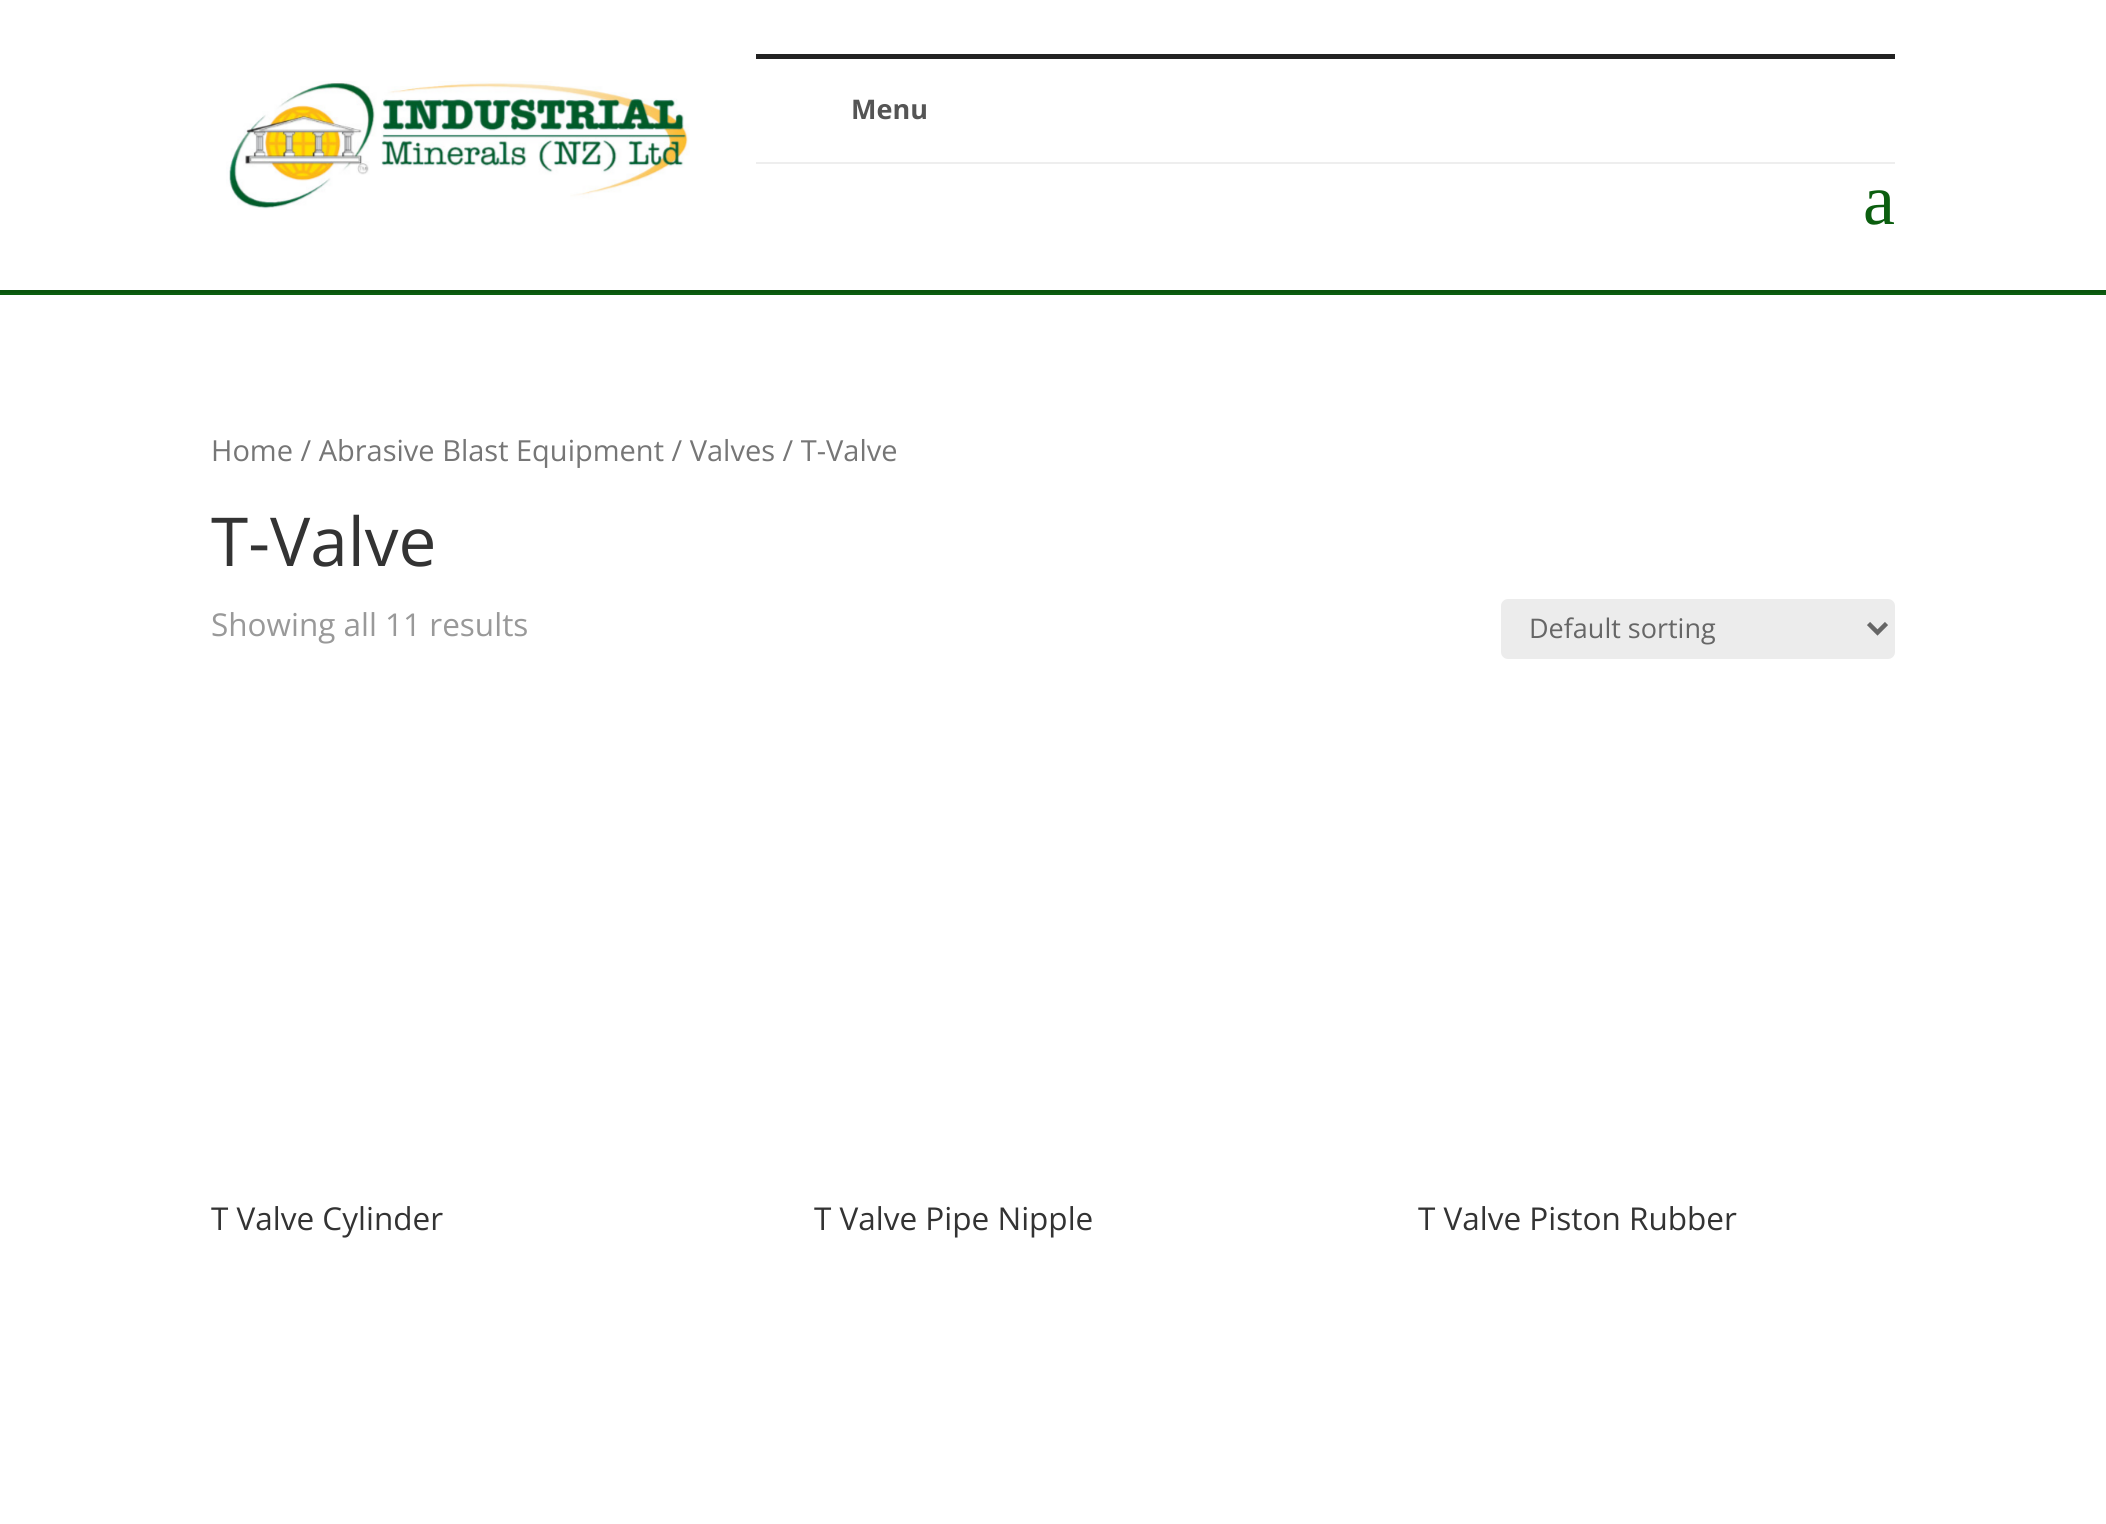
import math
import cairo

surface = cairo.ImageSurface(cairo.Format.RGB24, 2106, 1524)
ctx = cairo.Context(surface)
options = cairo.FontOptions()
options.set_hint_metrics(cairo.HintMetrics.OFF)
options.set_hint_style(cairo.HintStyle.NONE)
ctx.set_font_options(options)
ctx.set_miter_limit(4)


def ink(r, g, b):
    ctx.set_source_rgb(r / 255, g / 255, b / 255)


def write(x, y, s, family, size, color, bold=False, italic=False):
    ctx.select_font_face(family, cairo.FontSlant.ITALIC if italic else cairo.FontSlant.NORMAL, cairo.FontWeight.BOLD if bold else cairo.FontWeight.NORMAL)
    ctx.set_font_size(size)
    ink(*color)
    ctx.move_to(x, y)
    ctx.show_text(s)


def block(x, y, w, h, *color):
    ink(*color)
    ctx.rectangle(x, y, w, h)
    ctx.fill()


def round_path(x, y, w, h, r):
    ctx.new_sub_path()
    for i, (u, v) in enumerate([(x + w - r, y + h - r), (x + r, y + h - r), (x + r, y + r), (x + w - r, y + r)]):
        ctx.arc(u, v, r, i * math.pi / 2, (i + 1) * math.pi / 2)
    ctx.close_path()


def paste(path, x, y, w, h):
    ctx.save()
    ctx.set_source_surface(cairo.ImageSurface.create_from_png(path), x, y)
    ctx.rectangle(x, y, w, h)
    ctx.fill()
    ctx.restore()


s1 = dict(family="Open Sans", size=27, color=(85, 85, 85), bold=True)
s2 = dict(family="Liberation Serif", size=72, color=(11, 94, 15))
s3 = dict(family="Open Sans", size=29, color=(118, 118, 118))
s4 = dict(family="Open Sans", size=67.5, color=(51, 51, 51))
s5 = dict(family="Open Sans", size=31.5, color=(153, 153, 153))
s6 = dict(family="Open Sans", size=27, color=(102, 102, 102))
s7 = dict(family="Open Sans", size=31.5, color=(51, 51, 51))

ink(11, 94, 15)
ctx.paint()
block(0, 290, 2106, 3, 10, 85, 14)
block(0, 0, 2106, 290, 255, 255, 255)
paste("pic1.png", 226, 81, 464, 129)
block(756, 54, 1139, 5, 34, 34, 34)
block(756, 162, 1139, 2, 238, 238, 238)
write(851, 119, "Menu", **s1)
write(1863, 224, "a", **s2)
block(0, 295, 2106, 1229, 255, 255, 255)
write(211, 461, "Home / Abrasive Blast Equipment / Valves / T-Valve", **s3)
write(211, 566, "T-Valve", **s4)
write(211, 636, "Showing all 11 results", **s5)
ink(236, 236, 236)
round_path(1501, 599, 394, 60, 7)
ctx.fill()
ctx.new_path()
ctx.move_to(1868.5, 623.5)
ctx.line_to(1877.5, 632.5)
ctx.line_to(1886.5, 623.5)
ink(102, 102, 102)
ctx.set_line_width(4.5)
ctx.stroke()
write(1529, 638, "Default sorting", **s6)
write(211, 1230, "T Valve Cylinder", **s7)
write(814, 1230, "T Valve Pipe Nipple", **s7)
write(1418, 1230, "T Valve Piston Rubber", **s7)
surface.write_to_png("screenshot.png")
